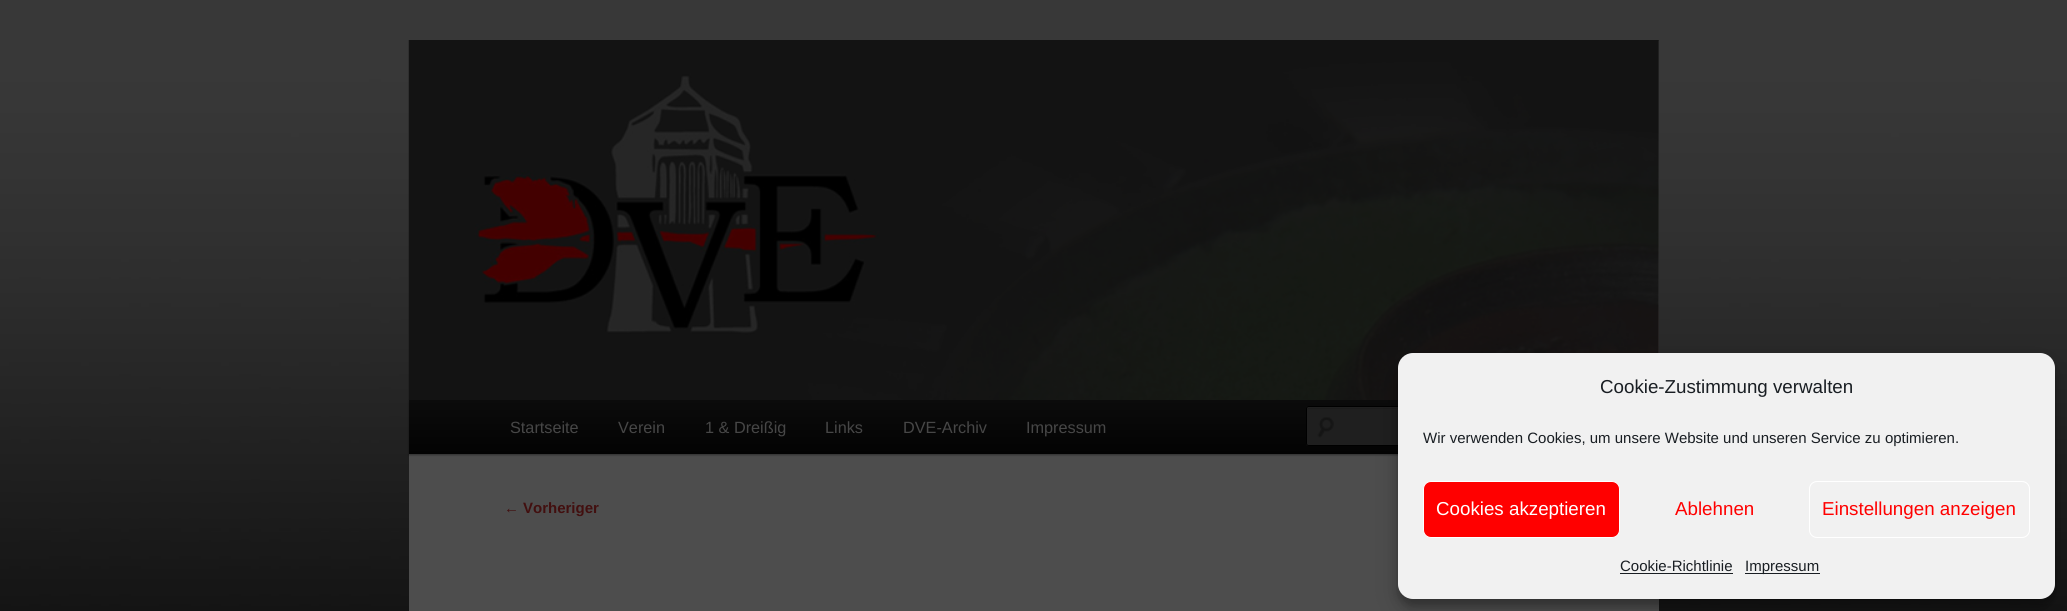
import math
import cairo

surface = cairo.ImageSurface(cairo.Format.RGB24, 2067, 611)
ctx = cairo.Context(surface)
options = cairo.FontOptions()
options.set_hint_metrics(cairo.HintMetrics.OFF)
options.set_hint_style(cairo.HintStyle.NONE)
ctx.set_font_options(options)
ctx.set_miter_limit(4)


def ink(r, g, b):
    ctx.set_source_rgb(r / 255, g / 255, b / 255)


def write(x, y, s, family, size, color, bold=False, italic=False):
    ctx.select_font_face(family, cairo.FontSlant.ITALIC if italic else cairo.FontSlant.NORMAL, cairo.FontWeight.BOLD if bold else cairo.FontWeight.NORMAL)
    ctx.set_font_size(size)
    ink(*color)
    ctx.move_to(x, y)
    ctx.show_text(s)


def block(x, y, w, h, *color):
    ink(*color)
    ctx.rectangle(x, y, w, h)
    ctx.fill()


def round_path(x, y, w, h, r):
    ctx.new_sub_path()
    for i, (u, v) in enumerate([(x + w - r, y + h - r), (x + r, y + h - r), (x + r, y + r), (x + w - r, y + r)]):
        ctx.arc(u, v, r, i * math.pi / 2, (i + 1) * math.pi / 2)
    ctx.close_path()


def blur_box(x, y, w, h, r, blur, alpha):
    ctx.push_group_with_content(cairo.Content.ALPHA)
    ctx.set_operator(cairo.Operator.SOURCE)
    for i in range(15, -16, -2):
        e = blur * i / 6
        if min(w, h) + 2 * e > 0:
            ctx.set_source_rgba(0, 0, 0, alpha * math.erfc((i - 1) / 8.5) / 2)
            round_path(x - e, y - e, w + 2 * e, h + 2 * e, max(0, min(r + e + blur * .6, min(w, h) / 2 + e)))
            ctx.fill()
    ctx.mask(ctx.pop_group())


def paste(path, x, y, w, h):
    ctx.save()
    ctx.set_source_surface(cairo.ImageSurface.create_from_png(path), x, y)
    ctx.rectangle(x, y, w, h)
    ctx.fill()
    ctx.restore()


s1 = dict(family="Liberation Sans", size=16.25, color=(71, 71, 71))
s2 = dict(family="Liberation Sans", size=15, color=(66, 15, 15))
s3 = dict(family="Liberation Sans", size=15, color=(66, 15, 15), bold=True)
s4 = dict(family="Liberation Sans", size=18.75, color=(25, 30, 35))
s5 = dict(family="Liberation Sans", size=15, color=(25, 30, 35))
s6 = dict(family="Liberation Sans", size=18.75, color=(255, 255, 255))
s7 = dict(family="Liberation Sans", size=18.75, color=(255, 0, 0))

ink(255, 255, 255)
ctx.paint()
paste("pic1.png", 0, 0, 2067, 611)
block(409, 41, 1250, 570, 77, 77, 77)
ink(0, 0, 0)
blur_box(409, 401, 1250, 54, 0, 1, 0.4)
paste("pic2.png", 408, 40, 1251, 360)
gradient = cairo.LinearGradient(1034, 400, 1034, 454)
gradient.add_color_stop_rgba(0, 0.043, 0.043, 0.043, 1)
gradient.add_color_stop_rgba(1, 0.012, 0.012, 0.012, 1)
ctx.set_source(gradient)
ctx.rectangle(409, 400, 989, 54)
ctx.fill()
write(510, 433, "Startseite", **s1)
write(618, 433, "Verein", **s1)
write(705, 433, "1 & Dreißig", **s1)
write(825, 433, "Links", **s1)
write(903, 433, "DVE-Archiv", **s1)
write(1026, 433, "Impressum", **s1)
ink(31, 31, 31)
round_path(1306, 406, 258, 40, 2.5)
ctx.fill()
paste("pic3.png", 1317, 417, 17, 21)
ink(28, 28, 28)
ctx.new_path()
ctx.move_to(1309, 409)
ctx.line_to(1561, 409)
ctx.curve_to(1562, 409, 1562, 409, 1562, 410)
ctx.line_to(1562, 445)
ctx.line_to(1563, 444)
ctx.line_to(1563, 409)
ctx.line_to(1562, 408)
ctx.line_to(1308, 408)
ctx.line_to(1308, 410)
ctx.curve_to(1308, 409, 1308, 409, 1309, 409)
ctx.close_path()
ctx.fill()
round_path(1306.5, 406.5, 257, 39, 2)
ink(0, 0, 0)
ctx.set_line_width(1)
ctx.stroke()
write(504, 513, "←", **s2)
write(523, 513, "Vorheriger", **s3)
ink(0, 0, 0)
blur_box(1398, 360, 657, 246, 15, 4, 0.23)
blur_box(1398, 365, 657, 246, 15, 12.5, 0.19)
ink(241, 241, 241)
round_path(1398, 353, 657, 246, 15)
ctx.fill()
write(1600, 393, "Cookie-Zustimmung verwalten", **s4)
write(1423, 443, "Wir verwenden Cookies, um unsere Website und unseren Service zu optimieren.", **s5)
ink(255, 0, 0)
round_path(1423.5, 481.5, 196, 56, 7.5)
ctx.fill_preserve()
ink(255, 255, 255)
ctx.stroke()
write(1436, 515, "Cookies akzeptieren", **s6)
write(1675, 515, "Ablehnen", **s7)
round_path(1809.5, 481.5, 220, 56, 7.5)
ink(255, 255, 255)
ctx.stroke()
write(1822, 515, "Einstellungen anzeigen", **s7)
write(1620, 571, "Cookie-Richtlinie", **s5)
block(1620, 573, 113, 1, 25, 30, 35)
block(1745, 573, 75, 1, 25, 30, 35)
write(1745, 571, "Impressum", **s5)
surface.write_to_png("screenshot.png")
